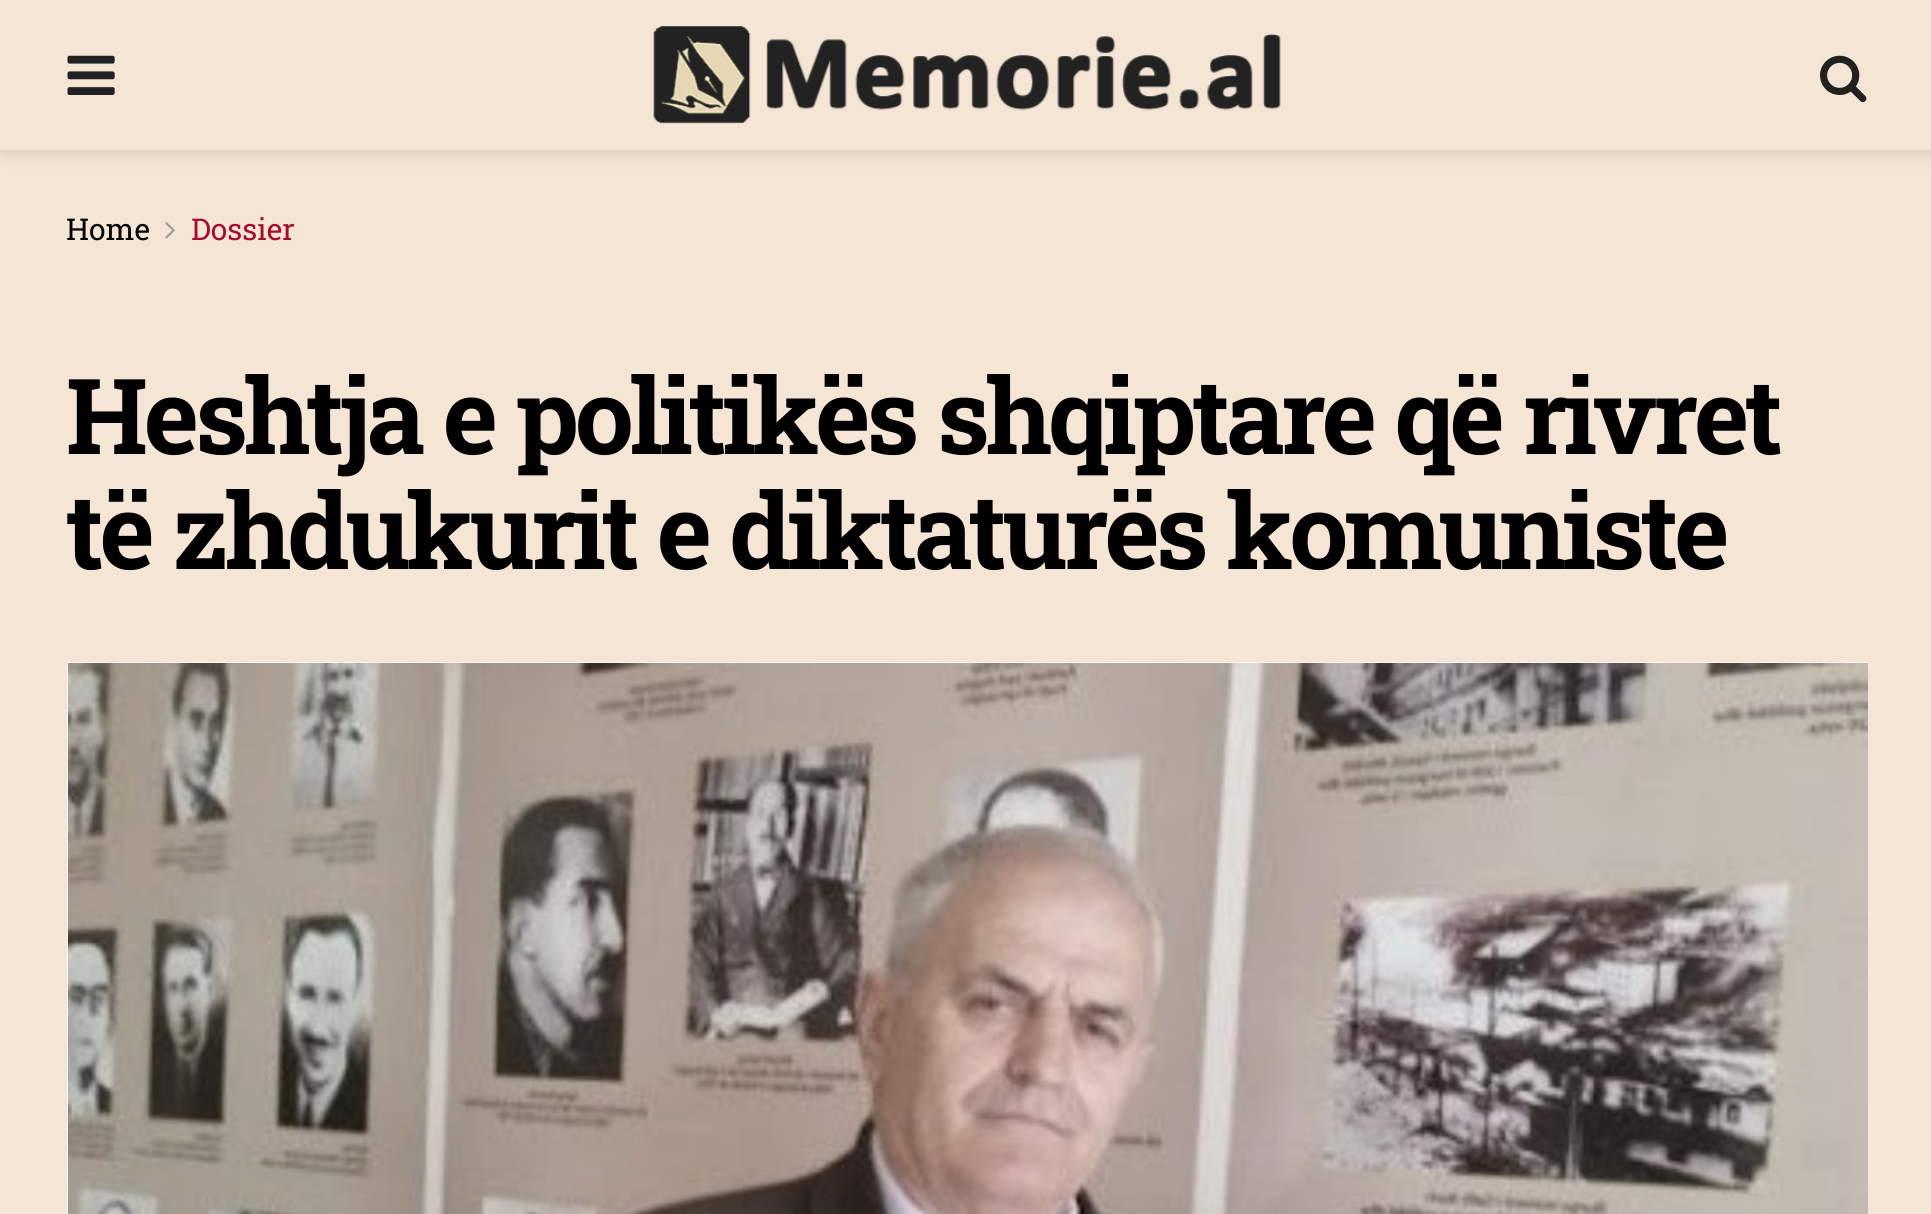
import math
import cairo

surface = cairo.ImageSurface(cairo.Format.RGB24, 1931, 1214)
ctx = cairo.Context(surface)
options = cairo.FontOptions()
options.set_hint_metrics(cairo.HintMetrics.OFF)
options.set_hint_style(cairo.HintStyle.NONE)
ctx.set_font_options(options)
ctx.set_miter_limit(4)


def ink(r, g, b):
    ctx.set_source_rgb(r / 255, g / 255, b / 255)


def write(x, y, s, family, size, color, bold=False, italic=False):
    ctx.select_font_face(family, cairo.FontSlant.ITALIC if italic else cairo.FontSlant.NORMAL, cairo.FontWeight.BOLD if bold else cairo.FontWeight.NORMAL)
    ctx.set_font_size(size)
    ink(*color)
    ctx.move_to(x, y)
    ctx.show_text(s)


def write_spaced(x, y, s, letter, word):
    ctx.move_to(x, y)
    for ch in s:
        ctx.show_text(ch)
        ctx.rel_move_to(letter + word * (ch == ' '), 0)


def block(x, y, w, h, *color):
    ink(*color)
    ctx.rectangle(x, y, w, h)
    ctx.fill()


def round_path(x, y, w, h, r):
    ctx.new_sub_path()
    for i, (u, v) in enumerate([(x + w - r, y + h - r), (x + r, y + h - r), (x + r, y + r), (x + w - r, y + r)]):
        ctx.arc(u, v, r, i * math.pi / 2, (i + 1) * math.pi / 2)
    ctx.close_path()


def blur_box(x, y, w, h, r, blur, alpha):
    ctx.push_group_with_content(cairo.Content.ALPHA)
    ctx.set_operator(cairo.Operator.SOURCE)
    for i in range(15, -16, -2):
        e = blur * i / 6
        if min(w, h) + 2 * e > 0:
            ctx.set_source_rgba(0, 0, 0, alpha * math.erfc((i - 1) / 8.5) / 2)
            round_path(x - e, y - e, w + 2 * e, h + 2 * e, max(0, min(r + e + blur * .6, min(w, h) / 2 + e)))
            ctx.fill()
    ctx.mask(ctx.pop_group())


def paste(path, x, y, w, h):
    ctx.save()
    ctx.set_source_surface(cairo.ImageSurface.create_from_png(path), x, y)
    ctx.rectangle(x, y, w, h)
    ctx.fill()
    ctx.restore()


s1 = dict(family="Roboto Slab", size=30, color=(0, 0, 0))
s2 = dict(family="Roboto Slab", size=30, color=(166, 12, 42))

ink(245, 229, 213)
ctx.paint()
ink(0, 0, 0)
blur_box(0, 5, 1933, 150, 0, 7.5, 0.1)
block(0, 0, 1931, 150, 245, 229, 213)
paste("pic1.png", 67, 55, 48, 40)
paste("pic2.png", 653, 26, 628, 98)
paste("pic3.png", 1820, 55, 47, 48)
write(66, 240, "Home", **s1)
paste("pic4.png", 165, 222, 10, 17)
write(191, 240, "Dossier", **s2)
ctx.select_font_face("Roboto Slab", cairo.FontSlant.NORMAL, cairo.FontWeight.BOLD)
ctx.set_font_size(105)
ink(0, 0, 0)
write_spaced(66, 454, "Heshtja e politikës shqiptare që rivret", -4.2, 0)
write_spaced(66, 569, "të zhdukurit e diktaturës komuniste", -4.2, 0)
block(67, 662, 1800, 552, 247, 247, 247)
paste("pic5.png", 68, 663, 1800, 551)
surface.write_to_png("screenshot.png")
